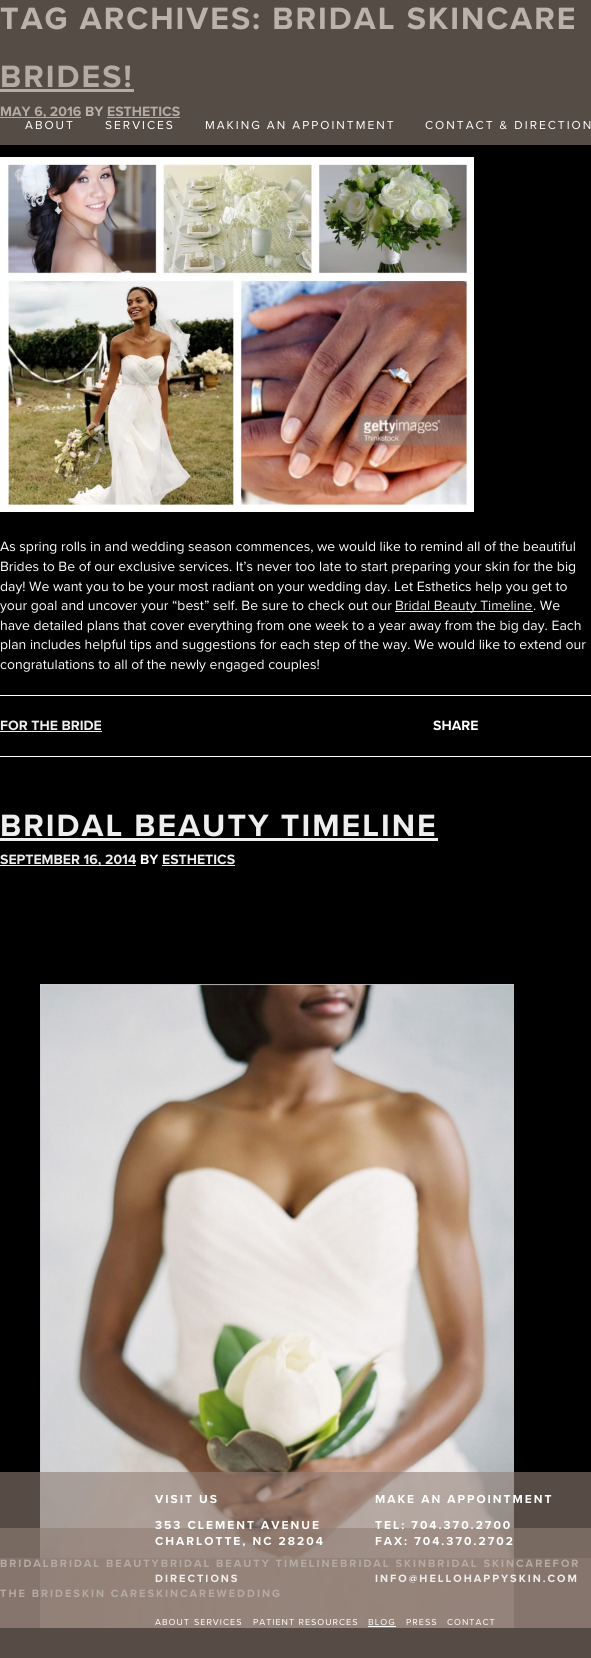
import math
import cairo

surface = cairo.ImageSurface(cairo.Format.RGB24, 591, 1658)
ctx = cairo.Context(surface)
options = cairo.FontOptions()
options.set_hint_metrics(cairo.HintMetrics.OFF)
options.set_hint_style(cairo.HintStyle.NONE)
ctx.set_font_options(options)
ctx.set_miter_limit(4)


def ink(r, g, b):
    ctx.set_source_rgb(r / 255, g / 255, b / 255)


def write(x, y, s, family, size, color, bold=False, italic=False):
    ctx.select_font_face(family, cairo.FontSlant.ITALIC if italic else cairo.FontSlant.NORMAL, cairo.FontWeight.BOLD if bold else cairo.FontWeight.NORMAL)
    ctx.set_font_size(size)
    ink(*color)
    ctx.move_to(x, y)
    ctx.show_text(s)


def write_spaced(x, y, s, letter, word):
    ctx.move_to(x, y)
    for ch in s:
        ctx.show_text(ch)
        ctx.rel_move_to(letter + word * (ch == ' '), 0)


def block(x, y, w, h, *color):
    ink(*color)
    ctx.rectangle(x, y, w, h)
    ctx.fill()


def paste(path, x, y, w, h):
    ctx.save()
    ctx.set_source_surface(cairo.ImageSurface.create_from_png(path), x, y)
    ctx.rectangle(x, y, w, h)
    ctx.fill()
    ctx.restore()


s1 = dict(family="Proxima Nova", size=14, color=(181, 171, 165), bold=True)
s2 = dict(family="Proxima Nova", size=14, color=(188, 178, 172), bold=True)
s3 = dict(family="Proxima Nova", size=14, color=(255, 255, 255))
s4 = dict(family="Proxima Nova", size=14, color=(238, 238, 238))
s5 = dict(family="Proxima Nova", size=14, color=(238, 238, 238), bold=True)
s6 = dict(family="Proxima Nova", size=14, color=(255, 255, 255), bold=True)

ink(0, 0, 0)
ctx.paint()
block(0, 0, 591, 145, 86, 76, 70)
ctx.select_font_face("Proxima Nova", cairo.FontSlant.NORMAL, cairo.FontWeight.BOLD)
ctx.set_font_size(32)
ink(188, 178, 172)
write_spaced(0, 29, "TAG ARCHIVES: BRIDAL SKINCARE", 2, 0)
ink(181, 171, 165)
write_spaced(0, 87, "BRIDES!", 2, 0)
block(0, 89, 134, 3, 181, 171, 165)
block(0, 117, 81, 1, 181, 171, 165)
write(0, 116, "MAY 6, 2016", **s1)
write(85, 116, "BY", **s2)
write(107, 116, "ESTHETICS", **s1)
block(107, 117, 73, 1, 181, 171, 165)
paste("pic1.png", 0, 157, 474, 355)
write(0, 551, "As spring rolls in and wedding season commences, we would like to remind all of the beautiful", **s3)
write(0, 571, "Brides to Be of our exclusive services. It’s never too late to start preparing your skin for the big", **s3)
write(0, 591, "day! We want you to be your most radiant on your wedding day. Let Esthetics help you get to", **s3)
write(0, 610, "your goal and uncover your “best” self. Be sure to check out our", **s3)
block(395, 611, 138, 1, 238, 238, 238)
write(395, 610, "Bridal Beauty Timeline", **s4)
write(533, 610, ". We", **s3)
write(0, 630, "have detailed plans that cover everything from one week to a year away from the big day. Each", **s3)
write(0, 649, "plan includes helpful tips and suggestions for each step of the way. We would like to extend our", **s3)
write(0, 669, "congratulations to all of the newly engaged couples!", **s3)
block(0, 695, 591, 1, 255, 255, 255)
block(0, 756, 591, 1, 255, 255, 255)
write(0, 730, "FOR THE BRIDE", **s5)
block(0, 731, 102, 1, 238, 238, 238)
write(433, 730, "SHARE", **s6)
paste("pic2.png", 40, 984, 474, 644)
ctx.set_source_rgba(0.561, 0.494, 0.455, 0.6)
ctx.rectangle(0, 1558, 591, 70)
ctx.fill()
ctx.set_font_size(32)
ink(238, 238, 238)
write_spaced(0, 836, "BRIDAL BEAUTY TIMELINE", 2, 0)
block(0, 838, 438, 3, 238, 238, 238)
block(0, 865, 136, 1, 238, 238, 238)
write(0, 864, "SEPTEMBER 16, 2014", **s5)
write(140, 864, "BY", **s6)
write(162, 864, "ESTHETICS", **s5)
block(162, 865, 73, 1, 238, 238, 238)
ctx.set_source_rgba(0.561, 0.494, 0.455, 0.6)
ctx.rectangle(0, 1528, 591, 100)
ctx.fill()
ctx.set_font_size(11)
ink(238, 238, 238)
write_spaced(0, 1567, "BRIDALBRIDAL BEAUTYBRIDAL BEAUTY TIMELINEBRIDAL SKINBRIDAL SKINCAREFOR", 2, 0)
write_spaced(0, 1597, "THE BRIDESKIN CARESKINCAREWEDDING", 2, 0)
ctx.set_source_rgba(0.561, 0.494, 0.455, 0.6)
ctx.rectangle(0, 1472, 591, 186)
ctx.fill()
ctx.set_font_size(12)
ink(255, 255, 255)
write_spaced(155, 1503, "VISIT US", 2, 0)
write_spaced(155, 1529, "353 CLEMENT AVENUE", 2, 0)
write_spaced(155, 1545, "CHARLOTTE, NC 28204", 2, 0)
ctx.set_font_size(11)
ink(238, 238, 238)
write_spaced(155, 1582, "DIRECTIONS", 2, 0)
ctx.set_font_size(12)
ink(255, 255, 255)
write_spaced(375, 1503, "MAKE AN APPOINTMENT", 2, 0)
write_spaced(375, 1529, "TEL: 704.370.2700", 2, 0)
write_spaced(375, 1545, "FAX: 704.370.2702", 2, 0)
ctx.set_font_size(11)
ink(238, 238, 238)
write_spaced(375, 1582, "INFO@HELLOHAPPYSKIN.COM", 2, 0)
ctx.select_font_face("Proxima Nova")
ctx.set_font_size(9)
ink(255, 255, 255)
write_spaced(155, 1625, "ABOUT", 1, 0)
write_spaced(194, 1625, "SERVICES", 1, 0)
write_spaced(253, 1625, "PATIENT RESOURCES", 1, 0)
write_spaced(368, 1625, "BLOG", 1, 0)
block(368, 1626, 28, 1, 255, 255, 255)
write_spaced(406, 1625, "PRESS", 1, 0)
write_spaced(447, 1625, "CONTACT", 1, 0)
ctx.set_font_size(12)
write_spaced(25, 129, "ABOUT", 2, 0)
write_spaced(105, 129, "SERVICES", 2, 0)
write_spaced(205, 129, "MAKING AN APPOINTMENT", 2, 0)
write_spaced(425, 129, "CONTACT & DIRECTION", 2, 0)
surface.write_to_png("screenshot.png")
